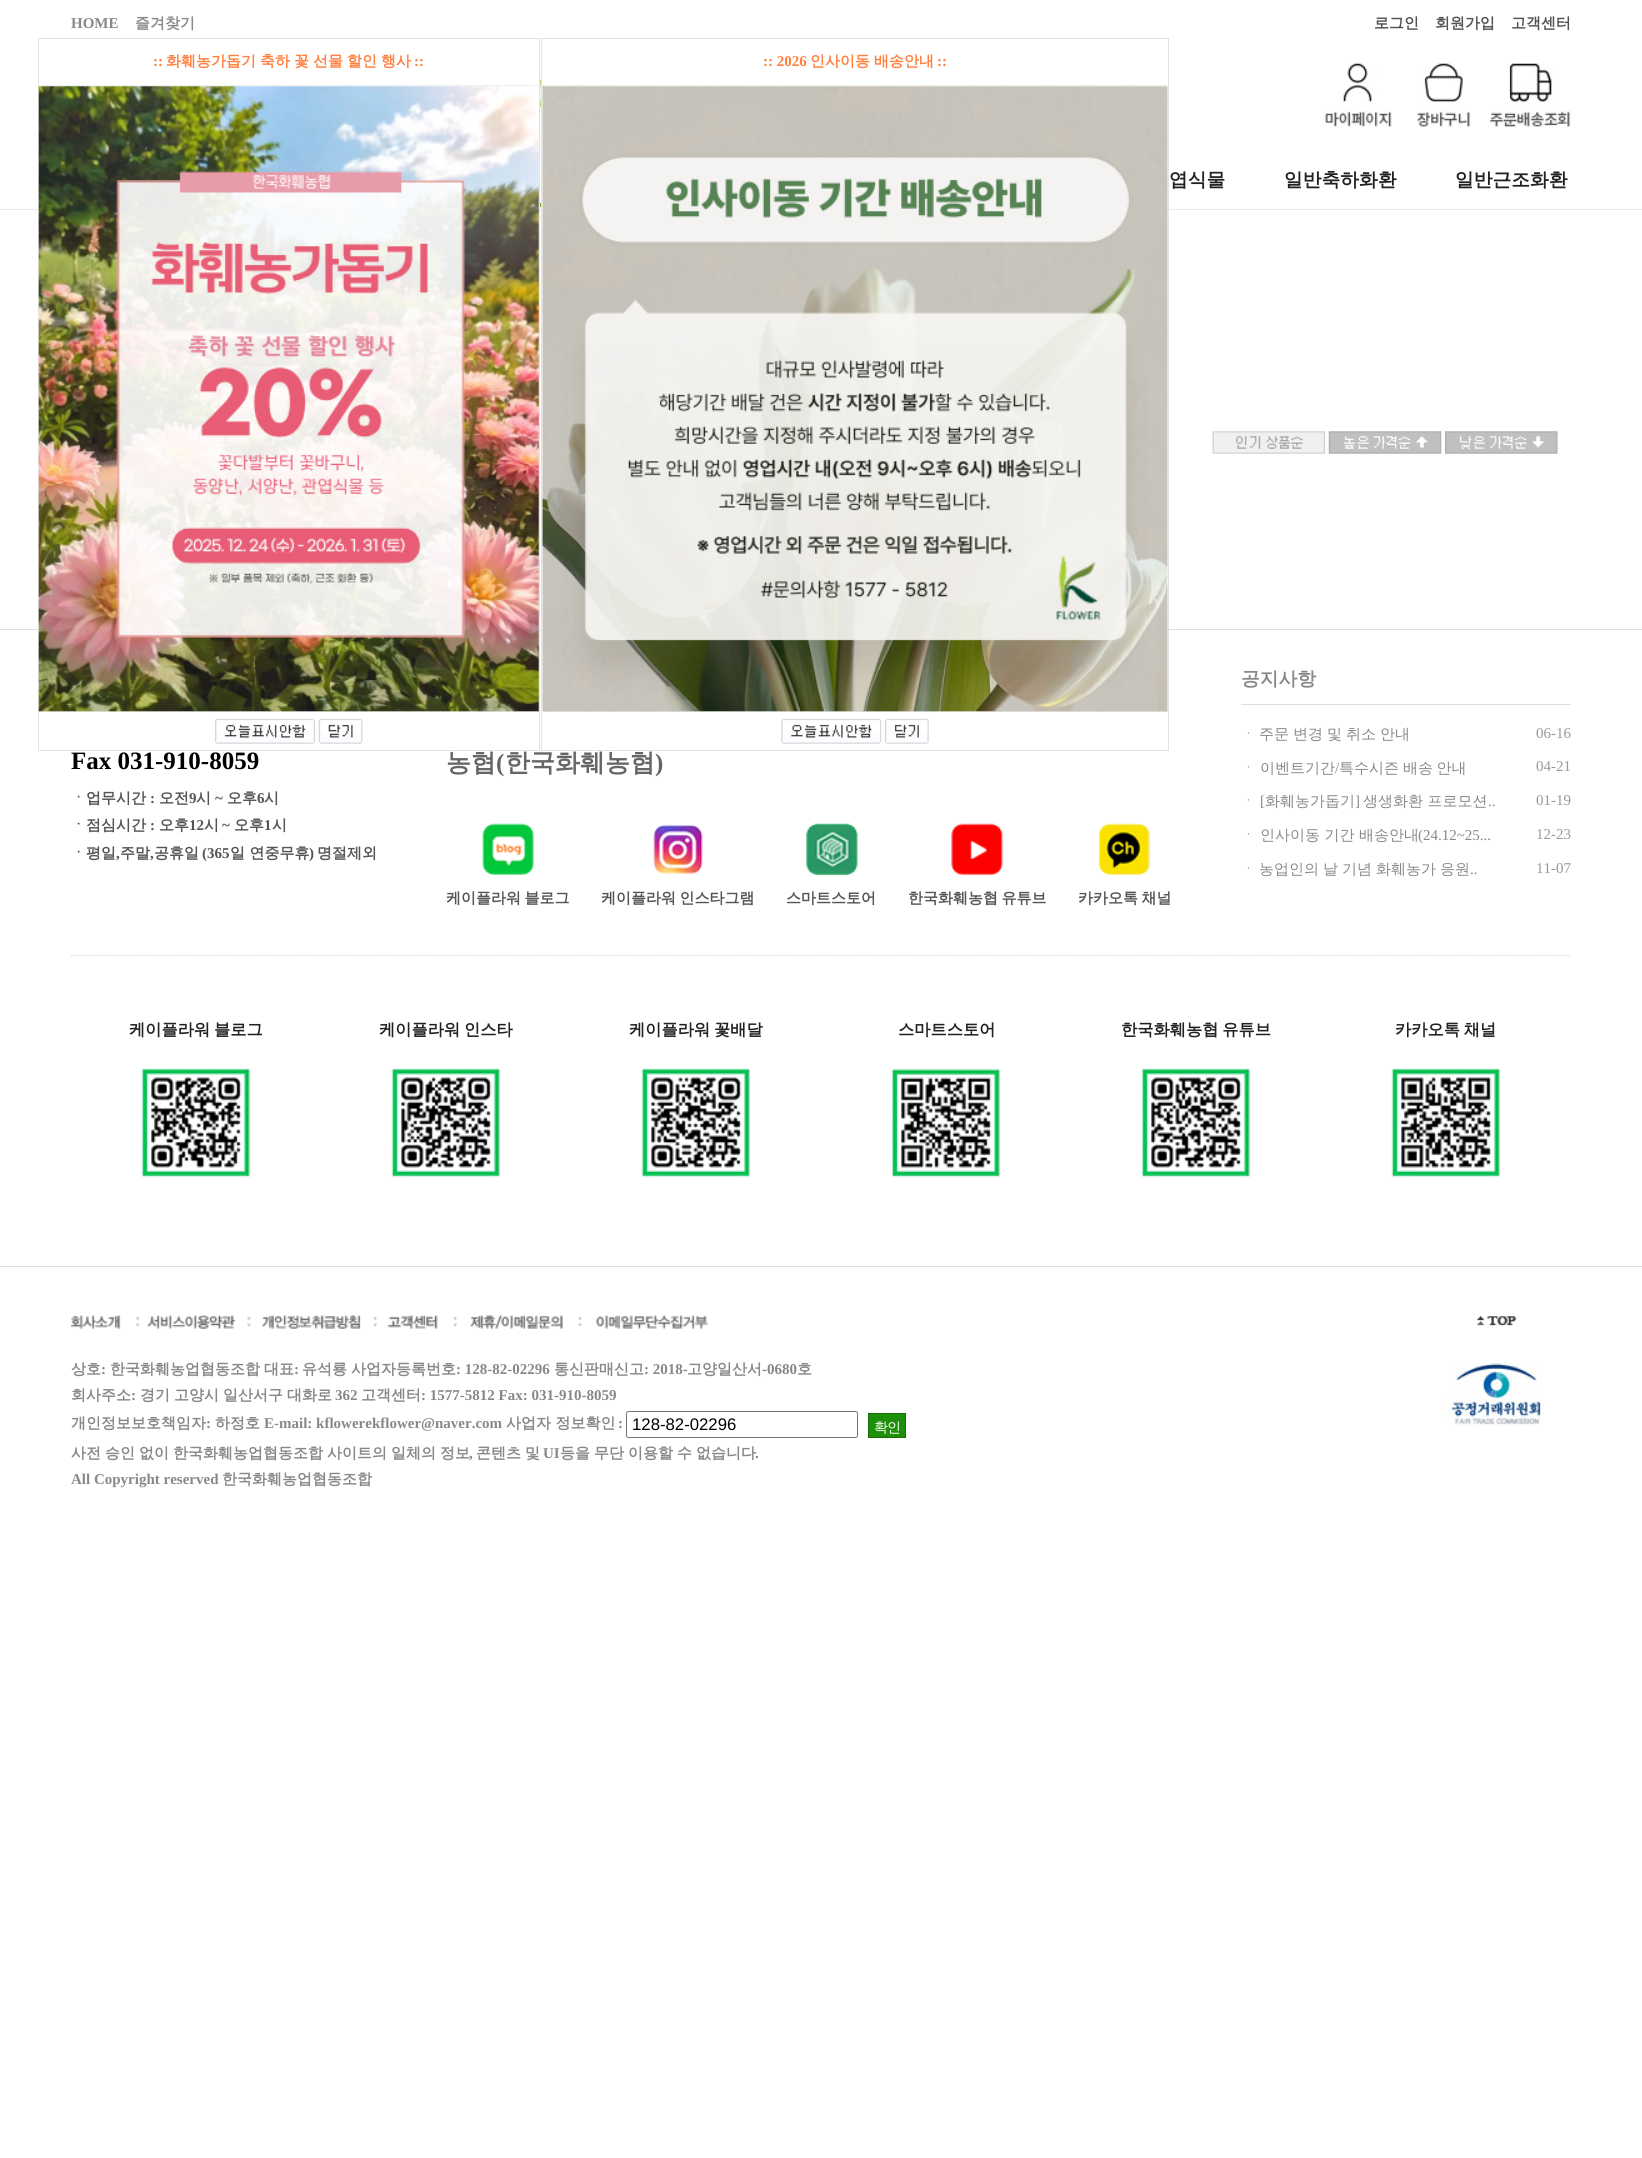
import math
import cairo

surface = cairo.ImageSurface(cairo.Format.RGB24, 1642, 2158)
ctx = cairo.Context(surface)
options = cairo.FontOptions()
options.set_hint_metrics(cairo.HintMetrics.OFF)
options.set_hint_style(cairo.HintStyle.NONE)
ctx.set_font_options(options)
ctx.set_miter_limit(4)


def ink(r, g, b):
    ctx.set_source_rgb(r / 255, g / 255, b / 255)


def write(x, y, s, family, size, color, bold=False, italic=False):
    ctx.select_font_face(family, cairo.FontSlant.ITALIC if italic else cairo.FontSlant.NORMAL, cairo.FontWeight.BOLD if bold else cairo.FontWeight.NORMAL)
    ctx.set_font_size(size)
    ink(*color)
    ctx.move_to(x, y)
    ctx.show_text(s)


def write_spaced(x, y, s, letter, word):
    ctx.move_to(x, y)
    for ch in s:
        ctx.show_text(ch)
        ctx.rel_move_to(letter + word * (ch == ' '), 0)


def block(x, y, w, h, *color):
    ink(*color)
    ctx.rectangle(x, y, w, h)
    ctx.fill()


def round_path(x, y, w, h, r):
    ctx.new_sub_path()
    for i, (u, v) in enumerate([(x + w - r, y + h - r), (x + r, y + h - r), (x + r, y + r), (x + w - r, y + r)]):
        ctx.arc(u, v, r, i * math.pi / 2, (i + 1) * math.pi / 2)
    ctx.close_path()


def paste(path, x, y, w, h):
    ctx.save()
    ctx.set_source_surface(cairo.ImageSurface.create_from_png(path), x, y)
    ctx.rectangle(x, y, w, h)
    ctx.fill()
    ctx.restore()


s1 = dict(family="Liberation Serif", size=15, color=(136, 136, 136), bold=True)
s2 = dict(family="WenQuanYi Zen Hei", size=15, color=(136, 136, 136), bold=True)
s3 = dict(family="WenQuanYi Zen Hei", size=15, color=(79, 82, 79), bold=True)
s4 = dict(family="Liberation Serif", size=15, color=(255, 128, 64), bold=True)
s5 = dict(family="WenQuanYi Zen Hei", size=15, color=(255, 128, 64), bold=True)
s6 = dict(family="WenQuanYi Zen Hei", size=18.75, color=(34, 34, 34), bold=True)
s7 = dict(family="Liberation Serif", size=25, color=(0, 0, 0), bold=True)
s8 = dict(family="WenQuanYi Zen Hei", size=15, color=(85, 85, 85), bold=True)
s9 = dict(family="Liberation Serif", size=15, color=(85, 85, 85), bold=True)
s10 = dict(family="WenQuanYi Zen Hei", size=25, color=(102, 102, 102), bold=True)
s11 = dict(family="Liberation Serif", size=25, color=(102, 102, 102), bold=True)
s12 = dict(family="WenQuanYi Zen Hei", size=18.75, color=(136, 136, 136), bold=True)
s13 = dict(family="WenQuanYi Zen Hei Medium", size=15, color=(153, 153, 153))
s14 = dict(family="Liberation Serif", size=15, color=(153, 153, 153))
s15 = dict(family="WenQuanYi Zen Hei Medium", size=15, color=(136, 136, 136))
s16 = dict(family="Liberation Serif", size=15, color=(136, 136, 136))
s17 = dict(family="WenQuanYi Zen Hei", size=16.25, color=(34, 34, 34), bold=True)
s18 = dict(family="Liberation Sans", size=16.75, color=(0, 0, 0))

ink(255, 255, 255)
ctx.paint()
write(71, 28, "HOME", **s1)
write(135, 28, "즐겨찾기", **s2)
write(1374, 28, "로그인", **s3)
write(1435, 28, "회원가입", **s3)
write(1511, 28, "고객센터", **s3)
block(0, 209, 1642, 1, 234, 234, 234)
block(0, 629, 1642, 1, 222, 222, 222)
block(39, 209, 500, 421, 255, 255, 255)
ctx.rectangle(38.5, 38.5, 501, 712)
ink(226, 226, 226)
ctx.set_line_width(1)
ctx.stroke()
ctx.new_path()
ctx.move_to(39, 85.5)
ctx.line_to(539, 85.5)
ctx.set_line_width(1.2)
ctx.set_dash([1.25, 1.25])
ctx.stroke()
write(153, 66, "::", **s4)
ctx.select_font_face("WenQuanYi Zen Hei", cairo.FontSlant.NORMAL, cairo.FontWeight.BOLD)
write_spaced(166, 66, "화훼농가돕기 축하 꽃 선물 할인 행사", 0, -0.5)
write(414, 66, "::", **s4)
block(39, 711, 500, 1, 226, 226, 226)
paste("pic1.png", 38, 86, 501, 626)
paste("pic2.png", 215, 718, 100, 26)
paste("pic3.png", 318, 718, 45, 26)
block(542, 209, 626, 421, 255, 255, 255)
ctx.rectangle(541.5, 38.5, 627, 712)
ink(226, 226, 226)
ctx.set_line_width(1)
ctx.set_dash([])
ctx.stroke()
ctx.new_path()
ctx.move_to(542.5, 85.5)
ctx.line_to(1167.5, 85.5)
ctx.set_line_width(1.2)
ctx.set_dash([1.25, 1.25])
ctx.stroke()
write(763, 66, ":: 2026", **s4)
write(810, 66, "인사이동", **s5)
write(874, 66, "배송안내", **s5)
write(937, 66, "::", **s4)
block(543, 711, 625, 1, 226, 226, 226)
paste("pic4.png", 542, 86, 626, 626)
paste("pic5.png", 781, 718, 101, 26)
paste("pic6.png", 885, 718, 44, 26)
paste("pic7.png", 540, 58, 1, 70)
paste("pic8.png", 1324, 63, 68, 64)
paste("pic9.png", 1417, 63, 54, 64)
paste("pic10.png", 1489, 63, 82, 64)
write(1169, 186, "엽식물", **s6)
write(1284, 186, "일반축하화환", **s6)
write(1455, 186, "일반근조화환", **s6)
block(540, 203, 1, 4, 131, 168, 26)
paste("pic11.png", 1212, 431, 346, 23)
write(71, 769, "Fax 031-910-8059", **s7)
write(71, 803, "ㆍ업무시간", **s8)
write(150, 803, ":", **s9)
write(159, 803, "오전", **s8)
write(189, 803, "9", **s9)
write(196, 803, "시", **s8)
write(215, 803, "~", **s9)
write(227, 803, "오후", **s8)
write(257, 803, "6", **s9)
write(264, 803, "시", **s8)
write(71, 830, "ㆍ점심시간", **s8)
write(150, 830, ":", **s9)
write(159, 830, "오후", **s8)
write(189, 830, "12", **s9)
write(204, 830, "시", **s8)
write(222, 830, "~", **s9)
write(234, 830, "오후", **s8)
write(264, 830, "1", **s9)
write(272, 830, "시", **s8)
write(71, 858, "ㆍ평일", **s8)
write(116, 858, ",", **s9)
write(120, 858, "주말", **s8)
write(150, 858, ",", **s9)
write(154, 858, "공휴일", **s8)
write(202, 858, "(365", **s9)
write(230, 858, "일 연중무휴", **s8)
write(309, 858, ")", **s9)
write(317, 858, "명절제외", **s8)
write(446, 771, "농협", **s10)
write(496, 771, "(", **s11)
write(505, 771, "한국화훼농협", **s10)
write(655, 771, ")", **s11)
paste("pic12.png", 482, 823, 52, 52)
ctx.select_font_face("WenQuanYi Zen Hei", cairo.FontSlant.NORMAL, cairo.FontWeight.BOLD)
ctx.set_font_size(15)
ink(85, 85, 85)
write_spaced(446, 903, "케이플라워 블로그", 0, -1)
paste("pic13.png", 653, 824, 50, 50)
write_spaced(601, 903, "케이플라워 인스타그램", 0, -1)
paste("pic14.png", 806, 823, 52, 52)
write(786, 903, "스마트스토어", **s8)
paste("pic15.png", 951, 823, 52, 52)
write_spaced(908, 903, "한국화훼농협 유튜브", 0, -1)
paste("pic16.png", 1098, 823, 52, 52)
write_spaced(1078, 903, "카카오톡 채널", 0, -1)
block(1241, 704, 330, 1, 222, 222, 222)
write(1241, 685, "공지사항", **s12)
write(1241, 739, "ㆍ", **s13)
ink(136, 136, 136)
write_spaced(1259, 739, "주문 변경 및 취소 안내", 0, -0.5)
write(1536, 738, "06-16", **s14)
write(1241, 773, "ㆍ", **s13)
write(1260, 773, "이벤트기간", **s15)
write(1335, 773, "/", **s16)
write(1339, 773, "특수시즌", **s15)
write_spaced(1403, 773, "배송 안내", 0, -1)
write(1536, 771, "04-21", **s14)
write(1241, 806, "ㆍ", **s13)
write(1260, 806, "[", **s16)
write(1265, 806, "화훼농가돕기", **s15)
write(1355, 806, "]", **s16)
write(1363, 806, "생생화환 프로모션", **s15)
write(1536, 805, "01-19", **s14)
write(1488, 806, "..", **s16)
write(1241, 840, "ㆍ", **s13)
write(1260, 840, "인사이동 기간 배송안내", **s15)
write(1418, 840, "(24.12~25...", **s16)
write(1536, 839, "12-23", **s14)
write(1241, 874, "ㆍ", **s13)
ink(136, 136, 136)
write_spaced(1259, 874, "농업인의 날 기념 화훼농가 응원", 0, -0.5)
write(1536, 873, "11-07", **s14)
write(1470, 874, "..", **s16)
ctx.new_path()
ctx.move_to(71, 955.5)
ctx.line_to(1571, 955.5)
ink(221, 221, 221)
ctx.stroke()
ctx.select_font_face("WenQuanYi Zen Hei", cairo.FontSlant.NORMAL, cairo.FontWeight.BOLD)
ctx.set_font_size(16.25)
ink(34, 34, 34)
write_spaced(129, 1035, "케이플라워 블로그", 0, -1)
paste("pic17.png", 141, 1068, 109, 110)
write_spaced(379, 1035, "케이플라워 인스타", 0, -1)
paste("pic18.png", 391, 1068, 109, 110)
write_spaced(629, 1035, "케이플라워 꽃배달", 0, -1)
paste("pic19.png", 641, 1066, 110, 112)
write(898, 1035, "스마트스토어", **s17)
paste("pic20.png", 891, 1068, 109, 110)
write_spaced(1121, 1035, "한국화훼농협 유튜브", 0, -1)
paste("pic21.png", 1141, 1068, 109, 110)
write_spaced(1395, 1035, "카카오톡 채널", 0, -1)
paste("pic22.png", 1391, 1068, 109, 110)
block(0, 1266, 1642, 1, 222, 222, 222)
paste("pic23.png", 71, 1315, 637, 14)
write(71, 1374, "상호", **s2)
write(101, 1374, ":", **s1)
write(110, 1374, "한국화훼농업협동조합", **s2)
write(264, 1374, "대표", **s2)
write(294, 1374, ":", **s1)
write(302, 1374, "유석룡", **s2)
write(351, 1374, "사업자등록번호", **s2)
write(456, 1374, ": 128-82-02296", **s1)
write(554, 1374, "통신판매신고", **s2)
write(644, 1374, ": 2018-", **s1)
write(687, 1374, "고양일산서", **s2)
write(762, 1374, "-0680", **s1)
write(797, 1374, "호", **s2)
write(71, 1400, "회사주소", **s2)
write(131, 1400, ":", **s1)
ctx.select_font_face("WenQuanYi Zen Hei", cairo.FontSlant.NORMAL, cairo.FontWeight.BOLD)
write_spaced(140, 1400, "경기 고양시 일산서구 대화로", 0, -0.5)
write(335, 1400, "362", **s1)
write(361, 1400, "고객센터", **s2)
write(421, 1400, ": 1577-5812 Fax: 031-910-8059", **s1)
write(71, 1428, "개인정보보호책임자", **s2)
write(206, 1428, ":", **s1)
write(215, 1428, "하정호", **s2)
write(264, 1428, "E-mail: kflowerekflower@naver.com", **s1)
write(506, 1428, "사업자 정보확인", **s2)
write(618, 1428, ":", **s1)
round_path(626.5, 1411.5, 231, 26, 2)
ink(118, 118, 118)
ctx.set_line_width(1)
ctx.set_dash([])
ctx.stroke()
write(632, 1430, "128-82-02296", **s18)
ink(29, 143, 8)
ctx.rectangle(868.5, 1413.5, 37, 24)
ctx.fill_preserve()
ink(19, 110, 3)
ctx.stroke()
ctx.select_font_face("WenQuanYi Zen Hei Medium")
ctx.set_font_size(14)
ink(255, 255, 255)
write_spaced(874, 1432, "확인", -1, 0)
ctx.select_font_face("WenQuanYi Zen Hei", cairo.FontSlant.NORMAL, cairo.FontWeight.BOLD)
ctx.set_font_size(15)
ink(136, 136, 136)
write_spaced(71, 1458, "사전 승인 없이 한국화훼농업협동조합 사이트의 일체의 정보", 0, -0.5)
write(469, 1458, ",", **s1)
ctx.select_font_face("WenQuanYi Zen Hei", cairo.FontSlant.NORMAL, cairo.FontWeight.BOLD)
write_spaced(476, 1458, "콘텐츠 및", 0, -0.5)
write(543, 1458, "UI", **s1)
ctx.select_font_face("WenQuanYi Zen Hei", cairo.FontSlant.NORMAL, cairo.FontWeight.BOLD)
write_spaced(560, 1458, "등을 무단 이용할 수 없습니다", 0, -0.5)
write(755, 1458, ".", **s1)
write(71, 1484, "All Copyright reserved", **s1)
write(222, 1484, "한국화훼농업협동조합", **s2)
paste("pic24.png", 1477, 1316, 40, 10)
paste("pic25.png", 1445, 1363, 97, 63)
surface.write_to_png("screenshot.png")
